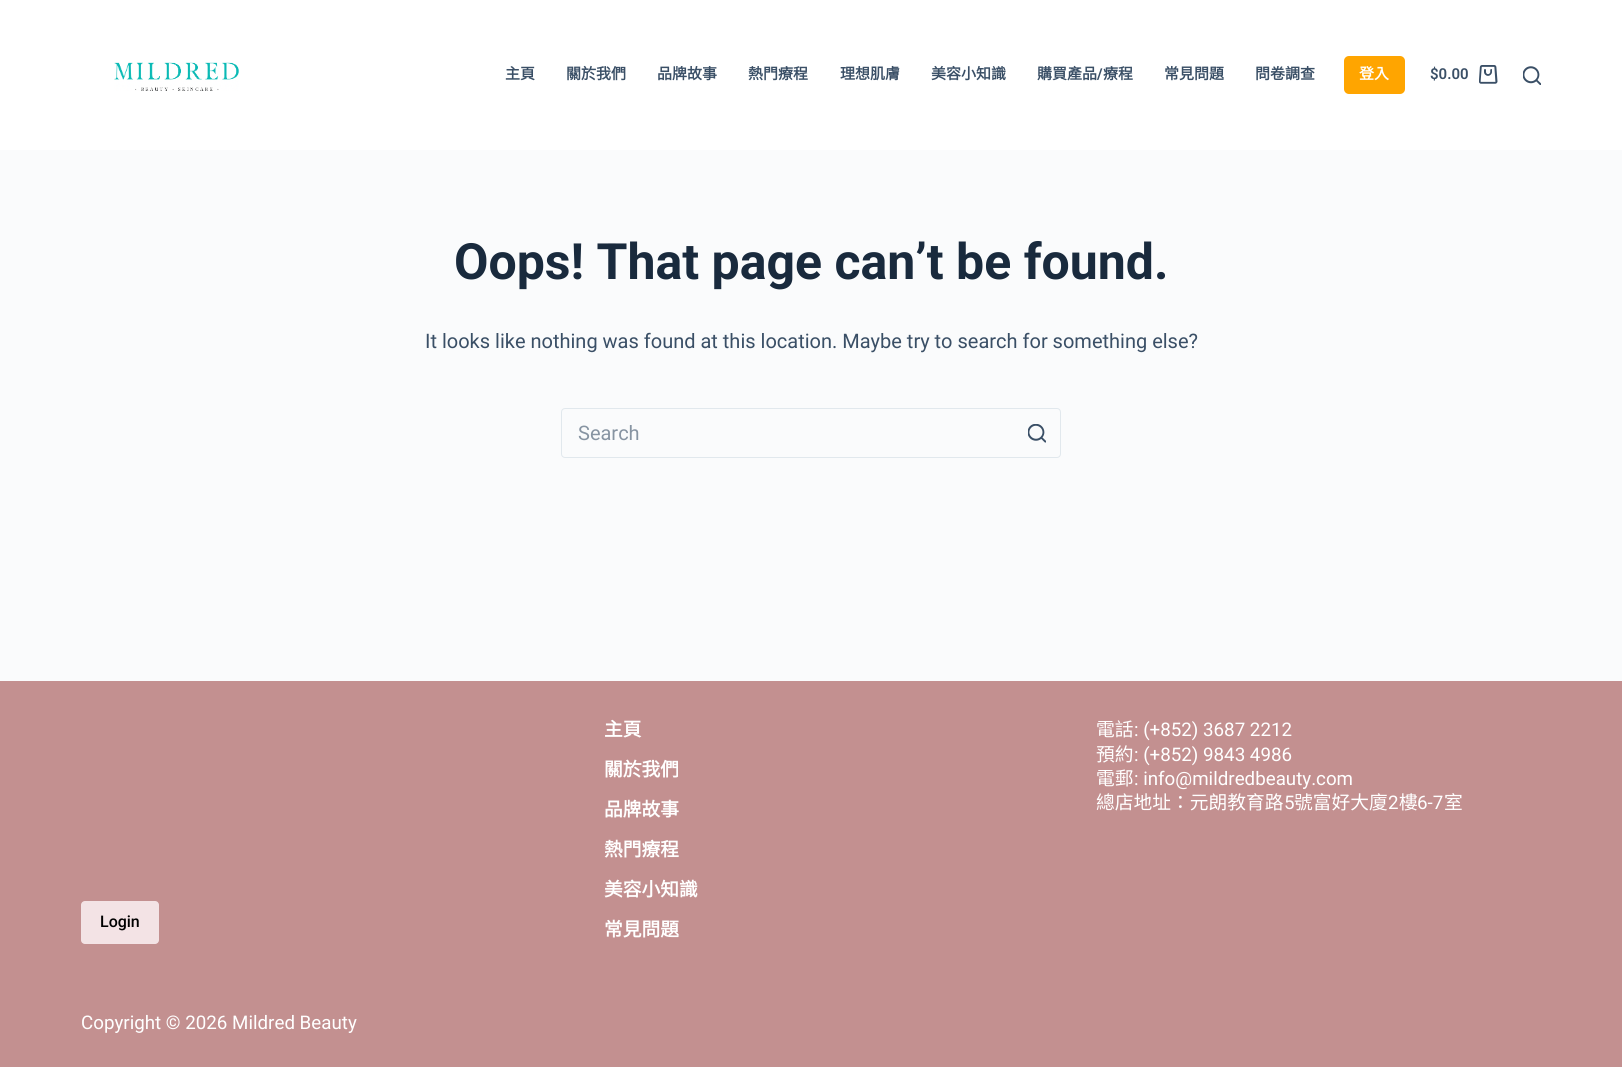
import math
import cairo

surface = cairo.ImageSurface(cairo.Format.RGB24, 1622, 1067)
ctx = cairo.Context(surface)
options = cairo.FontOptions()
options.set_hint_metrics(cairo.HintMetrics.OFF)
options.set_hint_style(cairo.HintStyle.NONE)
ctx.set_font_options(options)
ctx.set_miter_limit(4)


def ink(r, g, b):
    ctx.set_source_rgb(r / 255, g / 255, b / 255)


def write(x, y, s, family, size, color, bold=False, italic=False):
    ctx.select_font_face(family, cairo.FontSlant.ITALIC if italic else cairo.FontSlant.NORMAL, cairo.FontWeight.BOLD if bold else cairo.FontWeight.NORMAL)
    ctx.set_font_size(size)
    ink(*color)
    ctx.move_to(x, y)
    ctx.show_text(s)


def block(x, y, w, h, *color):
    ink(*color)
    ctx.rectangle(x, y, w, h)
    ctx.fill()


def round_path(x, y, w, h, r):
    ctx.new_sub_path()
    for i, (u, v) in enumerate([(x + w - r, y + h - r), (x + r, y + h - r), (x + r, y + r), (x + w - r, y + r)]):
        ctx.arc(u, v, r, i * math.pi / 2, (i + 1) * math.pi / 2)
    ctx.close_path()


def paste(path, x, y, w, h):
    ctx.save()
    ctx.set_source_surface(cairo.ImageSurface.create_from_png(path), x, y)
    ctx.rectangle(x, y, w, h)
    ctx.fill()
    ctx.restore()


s1 = dict(family="Noto Sans CJK HK", size=15, color=(58, 79, 102), bold=True)
s2 = dict(family="Roboto", size=15, color=(58, 79, 102), bold=True)
s3 = dict(family="Noto Sans CJK HK", size=15, color=(255, 255, 255), bold=True)
s4 = dict(family="Roboto SemiBold", size=15, color=(58, 79, 102))
s5 = dict(family="Roboto", size=50, color=(25, 42, 61), bold=True)
s6 = dict(family="Roboto", size=20, color=(58, 79, 102))
s7 = dict(family="Roboto", size=20, color=(135, 148, 162))
s8 = dict(family="Noto Sans CJK HK", size=18.75, color=(255, 255, 255), bold=True)
s9 = dict(family="Noto Sans CJK HK", size=18.75, color=(255, 255, 255))
s10 = dict(family="Roboto", size=18.75, color=(255, 255, 255))
s11 = dict(family="Roboto Medium", size=16, color=(0, 0, 0))

ink(250, 251, 252)
ctx.paint()
block(0, 0, 1622, 150, 255, 255, 255)
paste("pic1.png", 114, 62, 125, 29)
write(505, 79, "主頁", **s1)
write(566, 79, "關於我們", **s1)
write(657, 79, "品牌故事", **s1)
write(748, 79, "熱門療程", **s1)
write(840, 79, "理想肌膚", **s1)
write(931, 79, "美容小知識", **s1)
write(1037, 79, "購買產品", **s1)
write(1097, 79, "/", **s2)
write(1103, 79, "療程", **s1)
write(1164, 79, "常見問題", **s1)
write(1255, 79, "問卷調查", **s1)
ink(255, 165, 0)
round_path(1344, 56, 61, 38, 5)
ctx.fill()
write(1359, 79, "登入", **s3)
write(1430, 79, "$0.00", **s4)
paste("pic2.png", 1479, 65, 19, 19)
paste("pic3.png", 1523, 66, 18, 19)
write(454, 279, "Oops! That page can’t be found.", **s5)
write(425, 348, "It looks like nothing was found at this location. Maybe try to search for something else?", **s6)
round_path(561.5, 408.5, 499, 49, 3.5)
ink(225, 232, 237)
ctx.set_line_width(1)
ctx.stroke()
write(578, 440, "Search", **s7)
paste("pic4.png", 1028, 424, 18, 19)
block(0, 681, 1622, 386, 195, 144, 144)
write(604, 736, "主頁", **s8)
write(604, 776, "關於我們", **s8)
write(604, 816, "品牌故事", **s8)
write(604, 856, "熱門療程", **s8)
write(604, 896, "美容小知識", **s8)
write(604, 936, "常見問題", **s8)
write(1096, 736, "電話", **s9)
write(1134, 736, ": (+852) 3687 2212", **s10)
write(1096, 761, "預約", **s9)
write(1134, 761, ": (+852) 9843 4986", **s10)
write(1096, 785, "電郵", **s9)
write(1134, 785, ": info@mildredbeauty.com", **s10)
write(1096, 809, "總店地址：元朗教育路", **s9)
write(1284, 809, "5", **s10)
write(1294, 809, "號富好大廈", **s9)
write(1388, 809, "2", **s10)
write(1399, 809, "樓", **s9)
write(1417, 809, "6-7", **s10)
write(1444, 809, "室", **s9)
ink(243, 227, 229)
round_path(81, 901, 78, 43, 4)
ctx.fill()
write(100, 927, "Login", **s11)
write(81, 1029, "Copyright © 2026 Mildred Beauty", **s10)
surface.write_to_png("screenshot.png")
